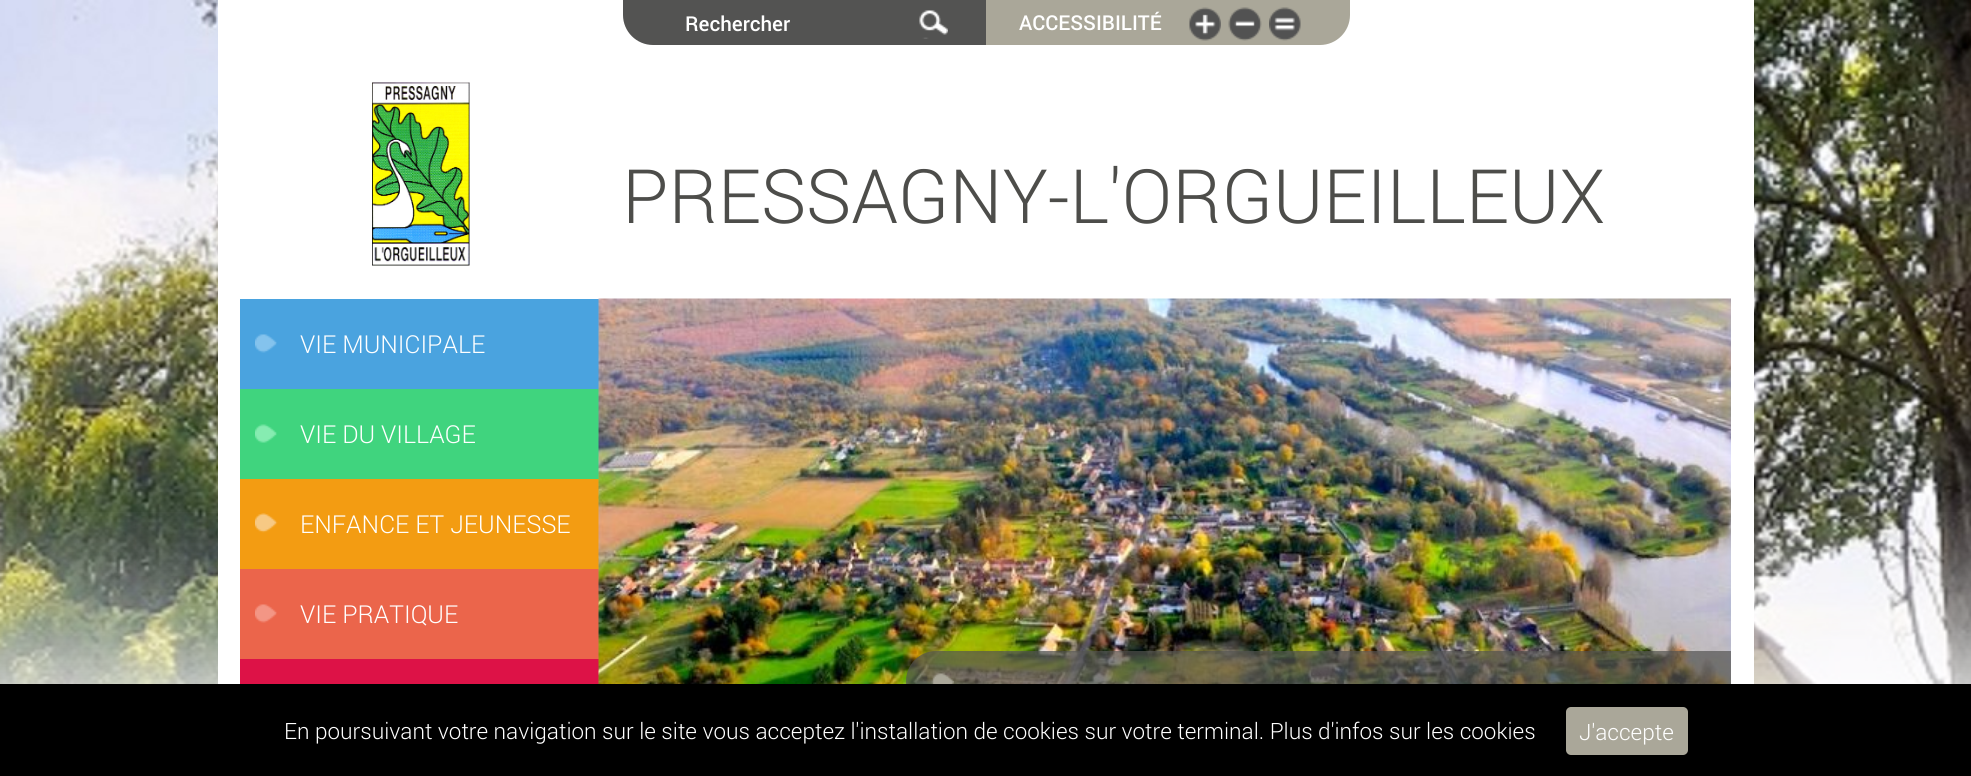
import math
import cairo

surface = cairo.ImageSurface(cairo.Format.RGB24, 1971, 776)
ctx = cairo.Context(surface)
options = cairo.FontOptions()
options.set_hint_metrics(cairo.HintMetrics.OFF)
options.set_hint_style(cairo.HintStyle.NONE)
ctx.set_font_options(options)
ctx.set_miter_limit(4)


def ink(r, g, b):
    ctx.set_source_rgb(r / 255, g / 255, b / 255)


def write(x, y, s, family, size, color, bold=False, italic=False):
    ctx.select_font_face(family, cairo.FontSlant.ITALIC if italic else cairo.FontSlant.NORMAL, cairo.FontWeight.BOLD if bold else cairo.FontWeight.NORMAL)
    ctx.set_font_size(size)
    ink(*color)
    ctx.move_to(x, y)
    ctx.show_text(s)


def block(x, y, w, h, *color):
    ink(*color)
    ctx.rectangle(x, y, w, h)
    ctx.fill()


def round_path(x, y, w, h, r):
    ctx.new_sub_path()
    for i, (u, v) in enumerate([(x + w - r, y + h - r), (x + r, y + h - r), (x + r, y + r), (x + w - r, y + r)]):
        ctx.arc(u, v, r, i * math.pi / 2, (i + 1) * math.pi / 2)
    ctx.close_path()


def paste(path, x, y, w, h):
    ctx.save()
    ctx.set_source_surface(cairo.ImageSurface.create_from_png(path), x, y)
    ctx.rectangle(x, y, w, h)
    ctx.fill()
    ctx.restore()


s1 = dict(family="Roboto Medium", size=20.5, color=(255, 255, 255))
s2 = dict(family="Roboto Light", size=75, color=(77, 77, 74))
s3 = dict(family="Roboto Light", size=24.75, color=(255, 255, 255))
s4 = dict(family="Roboto Light", size=22.5, color=(255, 255, 255))

ink(255, 255, 255)
ctx.paint()
paste("pic1.png", 0, 0, 1971, 684)
paste("pic2.png", 0, 512, 1971, 172)
block(218, 0, 1536, 684, 255, 255, 255)
ink(83, 83, 82)
ctx.new_path()
ctx.move_to(623, 0)
ctx.line_to(986, 0)
ctx.line_to(986, 45)
ctx.line_to(653, 45)
ctx.curve_to(636.5, 45, 623, 31.5, 623, 15)
ctx.close_path()
ctx.fill()
write(685, 31, "Rechercher", **s1)
paste("pic3.png", 919, 10, 29, 29)
ink(170, 167, 153)
ctx.new_path()
ctx.move_to(986, 0)
ctx.line_to(1350, 0)
ctx.line_to(1350, 15)
ctx.curve_to(1350, 31.5, 1336.5, 45, 1320, 45)
ctx.line_to(986, 45)
ctx.close_path()
ctx.fill()
write(1019, 30, "ACCESSIBILITÉ", **s1)
paste("pic4.png", 1189, 7, 32, 34)
paste("pic5.png", 1228, 7, 34, 34)
paste("pic6.png", 1269, 7, 32, 34)
paste("pic7.png", 372, 82, 98, 184)
write(622, 223, "PRESSAGNY-L'ORGUEILLEUX", **s2)
block(240, 299, 359, 90, 74, 163, 223)
paste("pic8.png", 255, 334, 22, 19)
write(300, 353, "VIE MUNICIPALE", **s3)
block(240, 389, 359, 90, 64, 212, 126)
paste("pic9.png", 255, 424, 22, 19)
write(300, 443, "VIE DU VILLAGE", **s3)
block(240, 479, 359, 90, 243, 156, 18)
paste("pic10.png", 255, 513, 23, 20)
write(300, 533, "ENFANCE ET JEUNESSE", **s3)
block(240, 569, 359, 90, 235, 101, 75)
paste("pic11.png", 255, 604, 22, 19)
write(300, 623, "VIE PRATIQUE", **s3)
block(240, 659, 359, 25, 221, 18, 71)
paste("pic12.png", 598, 298, 1133, 386)
ctx.set_source_rgba(0.325, 0.325, 0.322, 0.7)
ctx.new_path()
ctx.move_to(936, 651)
ctx.line_to(1731, 651)
ctx.line_to(1731, 711)
ctx.line_to(936, 711)
ctx.curve_to(919.5, 711, 906, 697.5, 906, 681)
ctx.curve_to(906, 664.5, 919.5, 651, 936, 651)
ctx.close_path()
ctx.fill()
paste("pic13.png", 931, 673, 23, 11)
block(0, 684, 1971, 92, 0, 0, 0)
write(284, 739, "En poursuivant votre navigation sur le site vous acceptez l'installation de cookies sur votre terminal. Plus d'infos sur les cookies", **s4)
ink(170, 167, 153)
round_path(1566, 707, 122, 48, 5)
ctx.fill()
write(1579, 740, "J'accepte", **s4)
surface.write_to_png("screenshot.png")
